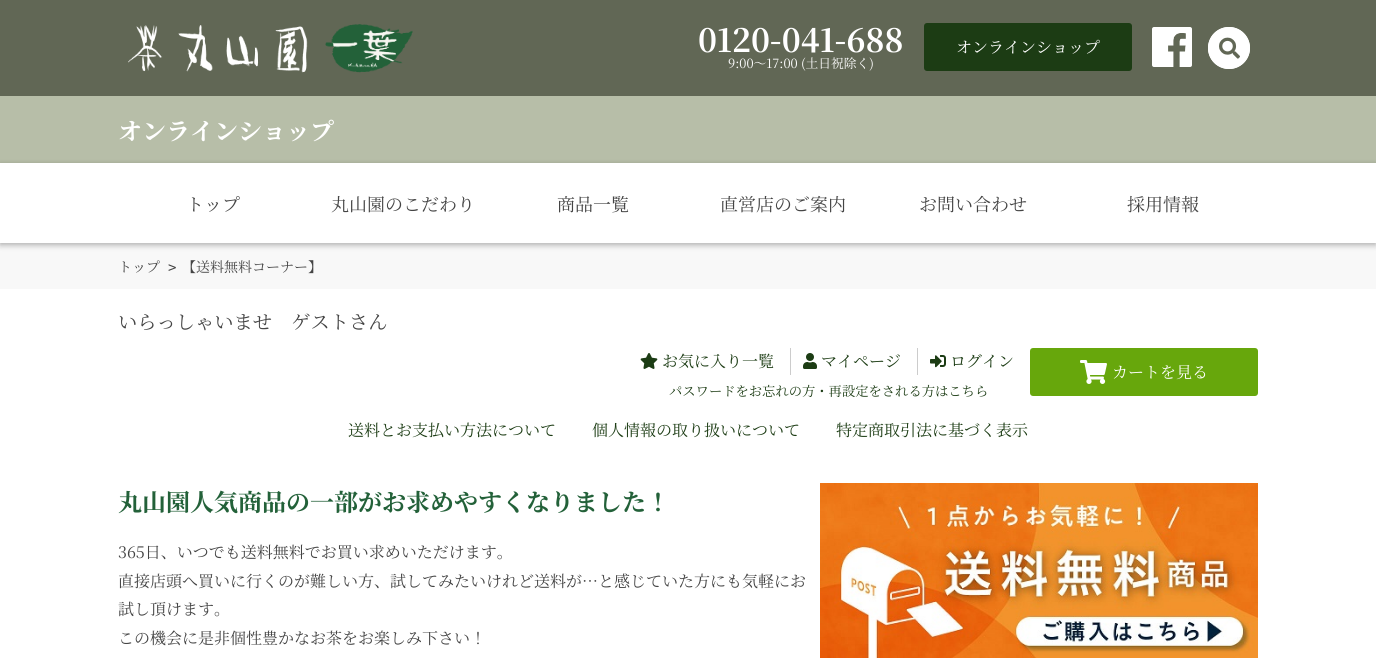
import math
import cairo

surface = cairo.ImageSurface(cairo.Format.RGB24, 1376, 659)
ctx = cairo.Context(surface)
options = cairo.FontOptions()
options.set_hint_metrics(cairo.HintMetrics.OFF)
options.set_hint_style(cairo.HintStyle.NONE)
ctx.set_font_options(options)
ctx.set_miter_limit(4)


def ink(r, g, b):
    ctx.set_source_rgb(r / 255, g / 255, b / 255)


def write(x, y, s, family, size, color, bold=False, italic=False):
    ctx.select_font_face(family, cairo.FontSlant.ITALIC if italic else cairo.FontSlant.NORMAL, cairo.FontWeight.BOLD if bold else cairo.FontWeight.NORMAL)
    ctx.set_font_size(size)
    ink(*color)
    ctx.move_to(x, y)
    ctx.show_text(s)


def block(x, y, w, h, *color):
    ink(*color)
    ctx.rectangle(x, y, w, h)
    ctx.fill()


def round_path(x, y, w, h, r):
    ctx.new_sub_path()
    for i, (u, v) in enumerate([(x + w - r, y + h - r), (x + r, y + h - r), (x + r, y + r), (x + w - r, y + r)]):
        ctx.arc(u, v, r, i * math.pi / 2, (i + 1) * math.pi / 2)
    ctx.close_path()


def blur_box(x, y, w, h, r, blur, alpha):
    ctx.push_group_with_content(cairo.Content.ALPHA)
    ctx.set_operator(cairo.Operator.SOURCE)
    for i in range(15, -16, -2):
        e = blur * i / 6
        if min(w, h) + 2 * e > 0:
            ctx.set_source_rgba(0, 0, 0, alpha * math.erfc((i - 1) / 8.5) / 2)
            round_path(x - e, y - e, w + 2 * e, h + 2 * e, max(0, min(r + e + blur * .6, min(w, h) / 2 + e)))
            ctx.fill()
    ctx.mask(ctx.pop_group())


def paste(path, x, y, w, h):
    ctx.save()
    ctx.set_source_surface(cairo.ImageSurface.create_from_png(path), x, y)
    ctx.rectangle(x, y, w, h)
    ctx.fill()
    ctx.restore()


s1 = dict(family="Noto Serif JP", size=32, color=(255, 255, 255), bold=True)
s2 = dict(family="Noto Serif JP", size=12.75, color=(255, 255, 255))
s3 = dict(family="Noto Serif JP", size=16, color=(255, 255, 255))
s4 = dict(family="Noto Serif JP", size=18, color=(68, 68, 68))
s5 = dict(family="Noto Serif JP", size=24, color=(255, 255, 255), bold=True)
s6 = dict(family="Noto Serif JP", size=14, color=(68, 68, 68))
s7 = dict(family="DejaVu Sans Mono", size=14, color=(68, 68, 68))
s8 = dict(family="Noto Serif JP", size=19.25, color=(68, 68, 68))
s9 = dict(family="Noto Serif JP", size=16, color=(28, 60, 20))
s10 = dict(family="Noto Serif JP", size=13.3, color=(28, 60, 20))
s11 = dict(family="Noto Serif JP", size=24, color=(35, 97, 57), bold=True)
s12 = dict(family="Noto Serif JP", size=16, color=(68, 68, 68))

ink(255, 255, 255)
ctx.paint()
block(0, 0, 1376, 96, 97, 103, 85)
paste("pic1.png", 128, 25, 180, 48)
paste("pic2.png", 325, 24, 88, 49)
write(698, 52, "0120-041-688", **s1)
write(728, 68, "9:00～17:00 (土日祝除く)", **s2)
ink(28, 60, 20)
round_path(924, 23, 208, 48, 3)
ctx.fill()
write(956, 53, "オンラインショップ", **s3)
paste("pic3.png", 1152, 27, 40, 40)
ctx.arc(1229, 48, 20.5, 0, 2 * math.pi)
ctx.set_line_width(1)
ctx.stroke()
ctx.arc(1229, 48, 20.5, 0, 2 * math.pi)
ctx.fill_preserve()
ctx.stroke()
paste("pic4.png", 1219, 37, 21, 22)
block(0, 96, 1376, 67, 183, 190, 168)
block(0, 243, 1376, 46, 248, 248, 248)
ctx.save()
ctx.set_fill_rule(cairo.FillRule.EVEN_ODD)
ctx.new_path()
ctx.move_to(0, 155)
ctx.line_to(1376, 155)
ctx.line_to(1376, 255)
ctx.line_to(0, 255)
ctx.close_path()
ctx.move_to(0, 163)
ctx.line_to(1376, 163)
ctx.line_to(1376, 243)
ctx.line_to(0, 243)
ctx.close_path()
ctx.clip()
ink(0, 0, 0)
blur_box(0, 165, 1376, 80, 0, 3, 0.3)
ctx.restore()
write(186, 211, "トップ", **s4)
write(331, 211, "丸山園のこだわり", **s4)
write(557, 211, "商品一覧", **s4)
write(720, 211, "直営店のご案内", **s4)
write(919, 211, "お問い合わせ", **s4)
write(1127, 211, "採用情報", **s4)
write(118, 140, "オンラインショップ", **s5)
write(118, 272, "トップ", **s6)
write(168, 272, ">", **s7)
write(182, 272, "【送料無料コーナー】", **s6)
write(118, 329, "いらっしゃいませ　ゲストさん", **s8)
ink(103, 167, 12)
round_path(1031, 349, 226, 46, 2)
ctx.fill_preserve()
ctx.set_line_width(2)
ctx.stroke()
paste("pic5.png", 1080, 360, 27, 24)
write(1112, 378, "カートを見る", **s3)
paste("pic6.png", 640, 353, 18, 16)
write(662, 367, "お気に入り一覧", **s9)
block(790, 348, 1, 27, 204, 204, 204)
paste("pic7.png", 803, 353, 14, 16)
write(821, 367, "マイページ", **s9)
block(917, 348, 1, 27, 204, 204, 204)
paste("pic8.png", 930, 355, 16, 13)
write(950, 367, "ログイン", **s9)
write(669, 396, "パスワードをお忘れの方・再設定をされる方はこちら", **s10)
write(348, 436, "送料とお支払い方法について", **s9)
write(592, 436, "個人情報の取り扱いについて", **s9)
write(836, 436, "特定商取引法に基づく表示", **s9)
write(118, 511, "丸山園人気商品の一部がお求めやすくなりました！", **s11)
write(118, 558, "365日、いつでも送料無料でお買い求めいただけます。", **s12)
write(118, 587, "直接店頭へ買いに行くのが難しい方、試してみたいけれど送料が…と感じていた方にも気軽にお", **s12)
write(118, 615, "試し頂けます。", **s12)
write(118, 644, "この機会に是非個性豊かなお茶をお楽しみ下さい！", **s12)
paste("pic9.png", 820, 483, 438, 175)
surface.write_to_png("screenshot.png")
